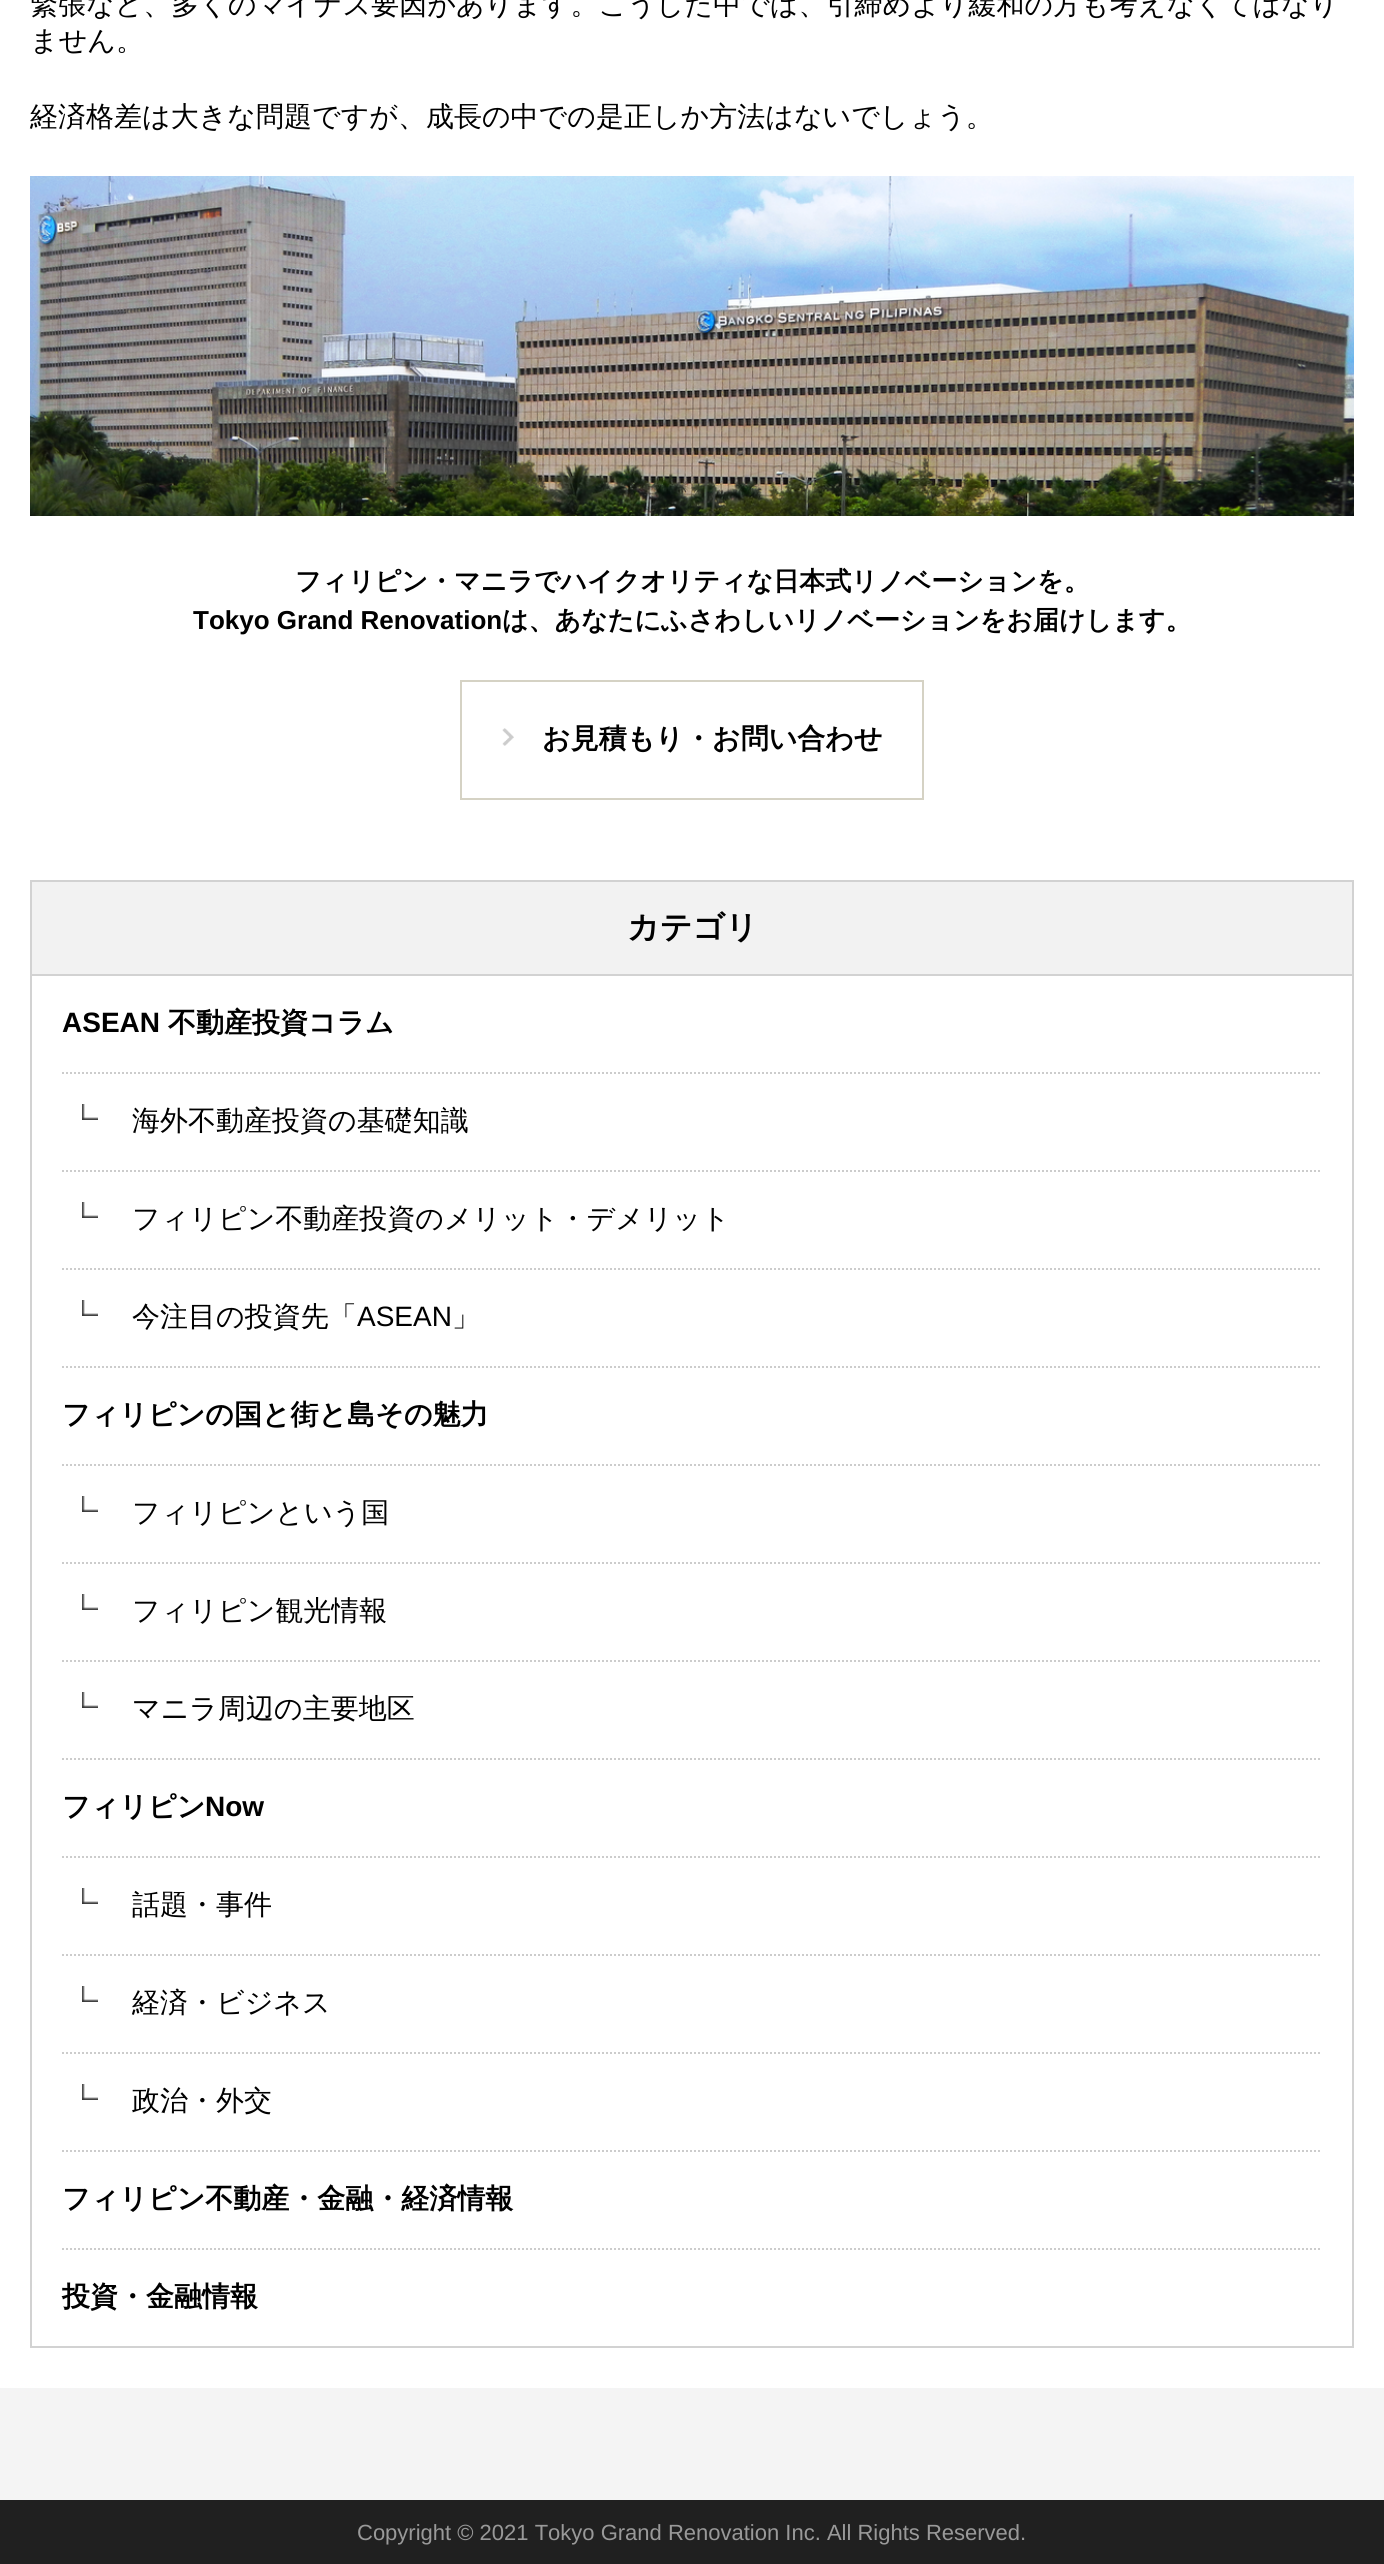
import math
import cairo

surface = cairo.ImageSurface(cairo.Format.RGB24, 1384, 2564)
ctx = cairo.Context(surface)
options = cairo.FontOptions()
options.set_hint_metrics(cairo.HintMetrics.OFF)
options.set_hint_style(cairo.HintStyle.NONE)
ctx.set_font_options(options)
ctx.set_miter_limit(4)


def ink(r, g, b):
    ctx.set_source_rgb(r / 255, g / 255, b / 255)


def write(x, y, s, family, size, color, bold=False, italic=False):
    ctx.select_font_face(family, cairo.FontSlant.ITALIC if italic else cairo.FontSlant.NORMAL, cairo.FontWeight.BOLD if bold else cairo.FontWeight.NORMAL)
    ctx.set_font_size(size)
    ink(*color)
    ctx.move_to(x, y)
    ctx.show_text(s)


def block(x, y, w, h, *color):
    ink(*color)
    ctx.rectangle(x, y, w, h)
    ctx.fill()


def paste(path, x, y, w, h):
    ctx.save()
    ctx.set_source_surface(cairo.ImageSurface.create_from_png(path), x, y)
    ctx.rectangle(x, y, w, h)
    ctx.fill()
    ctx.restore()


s1 = dict(family="WenQuanYi Zen Hei Medium", size=28, color=(0, 0, 0))
s2 = dict(family="WenQuanYi Zen Hei", size=26, color=(0, 0, 0), bold=True)
s3 = dict(family="Liberation Sans", size=26, color=(0, 0, 0), bold=True)
s4 = dict(family="WenQuanYi Zen Hei", size=28, color=(0, 0, 0), bold=True)
s5 = dict(family="WenQuanYi Zen Hei", size=32, color=(0, 0, 0), bold=True)
s6 = dict(family="Liberation Sans", size=28, color=(0, 0, 0), bold=True)
s7 = dict(family="Liberation Sans", size=28, color=(0, 0, 0))
s8 = dict(family="Liberation Sans", size=22, color=(153, 153, 153))

ink(255, 255, 255)
ctx.paint()
write(30, 14, "緊張など、多くのマイナス要因があります。こうした中では、引締めより緩和の方も考えなくてはなり", **s1)
write(30, 50, "ません。", **s1)
write(30, 126, "経済格差は大きな問題ですが、成長の中での是正しか方法はないでしょう。", **s1)
paste("pic1.png", 30, 176, 1324, 340)
write(295, 590, "フィリピン・マニラでハイクオリティな日本式リノベーションを。", **s2)
write(193, 629, "Tokyo Grand Renovation", **s3)
write(502, 629, "は、あなたにふさわしいリノベーションをお届けします。", **s2)
ctx.rectangle(461, 681, 462, 118)
ink(213, 210, 196)
ctx.stroke()
paste("pic2.png", 502, 728, 12, 18)
write(542, 748, "お見積もり・お問い合わせ", **s4)
ctx.rectangle(31, 881, 1322, 1466)
ink(210, 210, 210)
ctx.stroke()
block(32, 882, 1320, 92, 242, 242, 242)
block(32, 974, 1320, 2, 210, 210, 210)
write(627, 938, "カテゴリ", **s5)
write(62, 1032, "ASEAN", **s6)
write(168, 1032, "不動産投資コラム", **s4)
paste("pic3.png", 82, 1104, 16, 16)
ctx.new_path()
ctx.move_to(62, 1073)
ctx.line_to(1322, 1073)
ink(204, 204, 204)
ctx.set_dash([2, 2])
ctx.stroke()
write(132, 1130, "海外不動産投資の基礎知識", **s1)
paste("pic3.png", 82, 1202, 16, 16)
ctx.new_path()
ctx.move_to(62, 1171)
ctx.line_to(1322, 1171)
ink(204, 204, 204)
ctx.stroke()
write(132, 1228, "フィリピン不動産投資のメリット・デメリット", **s1)
paste("pic3.png", 82, 1300, 16, 16)
ctx.new_path()
ctx.move_to(62, 1269)
ctx.line_to(1322, 1269)
ink(204, 204, 204)
ctx.stroke()
write(132, 1326, "今注目の投資先「", **s1)
write(357, 1326, "ASEAN", **s7)
write(452, 1326, "」", **s1)
ctx.new_path()
ctx.move_to(62, 1367)
ctx.line_to(1322, 1367)
ink(204, 204, 204)
ctx.stroke()
write(62, 1424, "フィリピンの国と街と島その魅力", **s4)
paste("pic3.png", 82, 1496, 16, 16)
ctx.new_path()
ctx.move_to(62, 1465)
ctx.line_to(1322, 1465)
ink(204, 204, 204)
ctx.stroke()
write(132, 1522, "フィリピンという国", **s1)
paste("pic3.png", 82, 1594, 16, 16)
ctx.new_path()
ctx.move_to(62, 1563)
ctx.line_to(1322, 1563)
ink(204, 204, 204)
ctx.stroke()
write(132, 1620, "フィリピン観光情報", **s1)
paste("pic3.png", 82, 1692, 16, 16)
ctx.new_path()
ctx.move_to(62, 1661)
ctx.line_to(1322, 1661)
ink(204, 204, 204)
ctx.stroke()
write(132, 1718, "マニラ周辺の主要地区", **s1)
ctx.new_path()
ctx.move_to(62, 1759)
ctx.line_to(1322, 1759)
ink(204, 204, 204)
ctx.stroke()
write(62, 1816, "フィリピン", **s4)
write(205, 1816, "Now", **s6)
paste("pic3.png", 82, 1888, 16, 16)
ctx.new_path()
ctx.move_to(62, 1857)
ctx.line_to(1322, 1857)
ink(204, 204, 204)
ctx.stroke()
write(132, 1914, "話題・事件", **s1)
paste("pic3.png", 82, 1986, 16, 16)
ctx.new_path()
ctx.move_to(62, 1955)
ctx.line_to(1322, 1955)
ink(204, 204, 204)
ctx.stroke()
write(132, 2012, "経済・ビジネス", **s1)
paste("pic3.png", 82, 2084, 16, 16)
ctx.new_path()
ctx.move_to(62, 2053)
ctx.line_to(1322, 2053)
ink(204, 204, 204)
ctx.stroke()
write(132, 2110, "政治・外交", **s1)
ctx.new_path()
ctx.move_to(62, 2151)
ctx.line_to(1322, 2151)
ink(204, 204, 204)
ctx.stroke()
write(62, 2208, "フィリピン不動産・金融・経済情報", **s4)
ctx.new_path()
ctx.move_to(62, 2249)
ctx.line_to(1322, 2249)
ink(204, 204, 204)
ctx.stroke()
write(62, 2306, "投資・金融情報", **s4)
block(0, 2388, 1384, 112, 244, 244, 244)
block(0, 2500, 1384, 64, 32, 32, 32)
write(357, 2540, "Copyright © 2021 Tokyo Grand Renovation Inc. All Rights Reserved.", **s8)
surface.write_to_png("screenshot.png")
